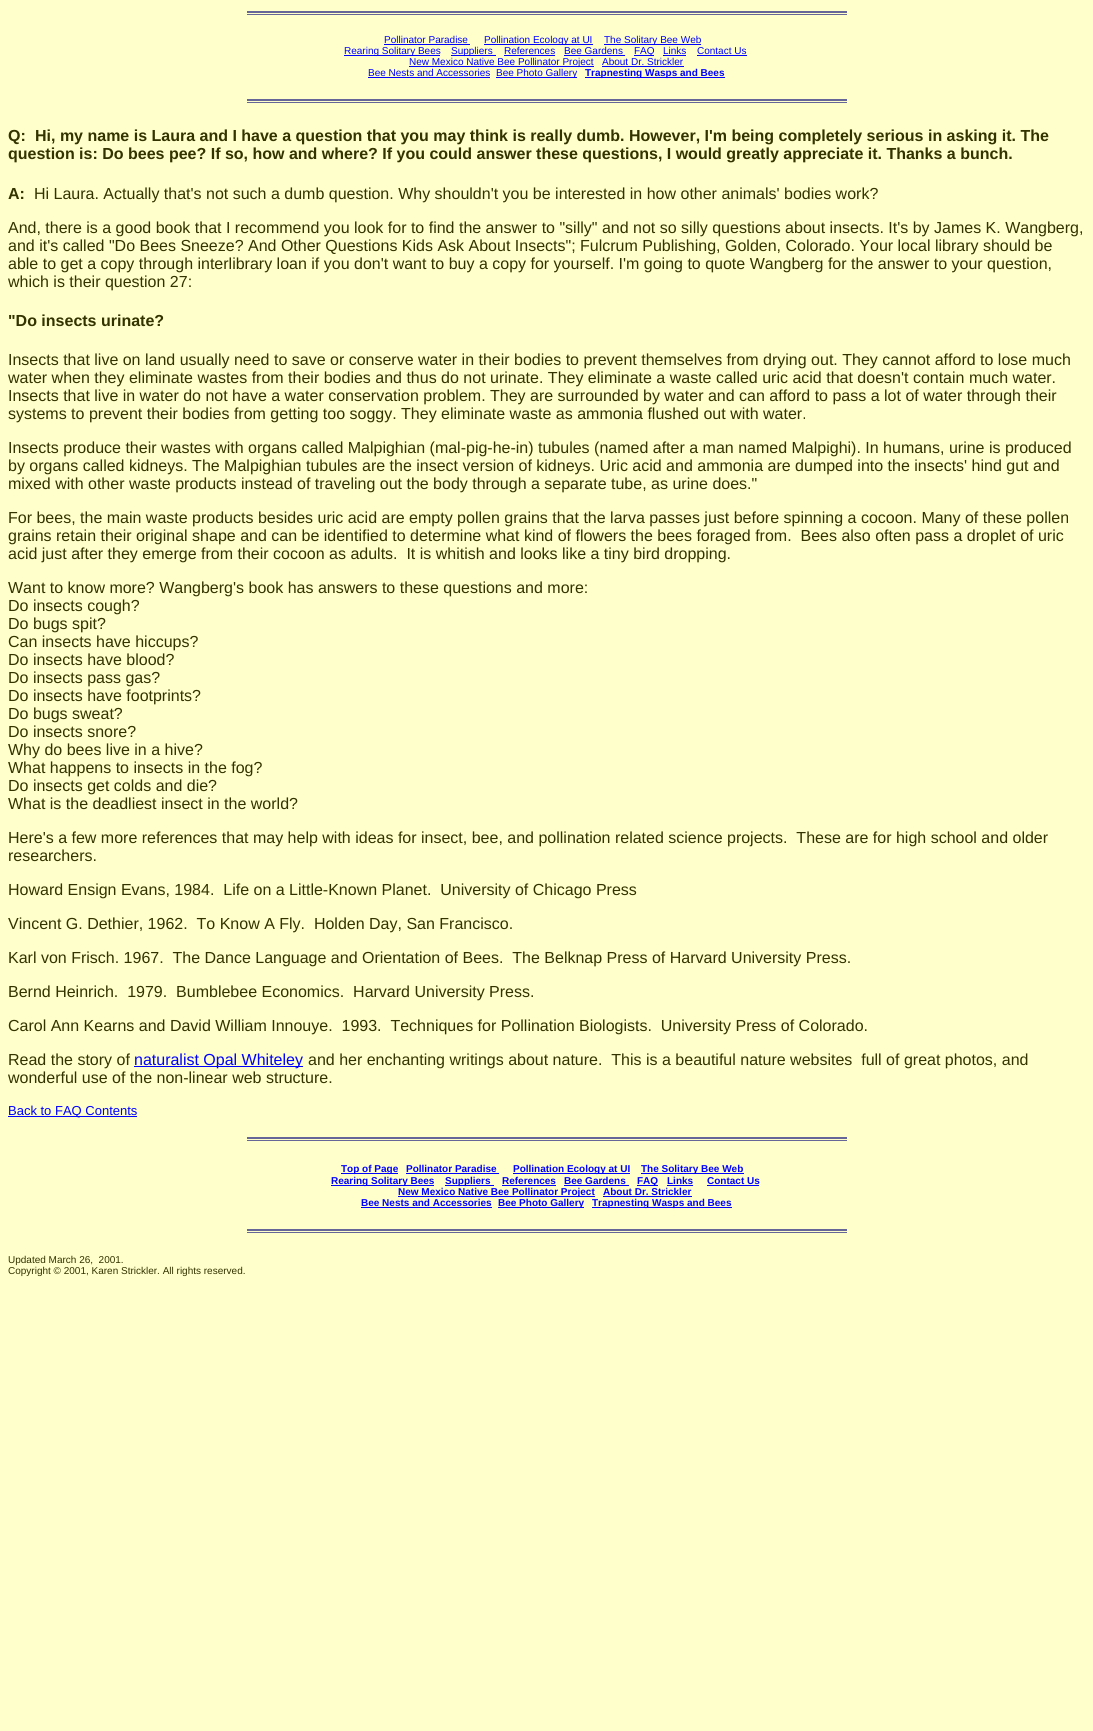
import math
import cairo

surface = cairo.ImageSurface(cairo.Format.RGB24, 1093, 1731)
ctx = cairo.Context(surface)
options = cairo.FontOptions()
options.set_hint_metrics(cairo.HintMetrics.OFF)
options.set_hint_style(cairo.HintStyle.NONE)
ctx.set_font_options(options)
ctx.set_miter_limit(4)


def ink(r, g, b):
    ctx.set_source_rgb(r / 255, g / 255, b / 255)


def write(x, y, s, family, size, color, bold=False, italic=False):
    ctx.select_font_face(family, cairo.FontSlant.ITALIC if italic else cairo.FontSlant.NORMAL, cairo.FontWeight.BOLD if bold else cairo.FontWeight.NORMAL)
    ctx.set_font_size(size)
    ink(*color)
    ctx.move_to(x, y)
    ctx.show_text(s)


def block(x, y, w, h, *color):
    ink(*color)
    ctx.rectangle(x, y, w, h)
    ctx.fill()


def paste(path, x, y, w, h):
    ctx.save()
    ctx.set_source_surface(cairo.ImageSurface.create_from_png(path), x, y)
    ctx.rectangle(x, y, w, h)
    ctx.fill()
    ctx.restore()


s1 = dict(family="Liberation Sans", size=10, color=(0, 0, 255))
s2 = dict(family="Liberation Sans", size=10, color=(0, 0, 255), bold=True)
s3 = dict(family="Liberation Sans", size=16, color=(51, 51, 0), bold=True)
s4 = dict(family="Liberation Sans", size=16, color=(51, 51, 0))
s5 = dict(family="Liberation Sans", size=16, color=(0, 0, 255))
s6 = dict(family="Liberation Sans", size=13, color=(0, 0, 255))
s7 = dict(family="Liberation Sans", size=10, color=(51, 51, 0))

ink(255, 255, 204)
ctx.paint()
paste("pic1.png", 247, 11, 600, 4)
write(384, 43, "Pollinator Paradise", **s1)
block(384, 44, 86, 1, 0, 0, 255)
block(484, 44, 109, 1, 0, 0, 255)
write(484, 43, "Pollination Ecology at UI", **s1)
block(604, 44, 97, 1, 0, 0, 255)
write(604, 43, "The Solitary Bee Web", **s1)
block(344, 55, 96, 1, 0, 0, 255)
write(344, 54, "Rearing Solitary Bees", **s1)
block(451, 55, 45, 1, 0, 0, 255)
write(451, 54, "Suppliers", **s1)
write(504, 54, "References", **s1)
block(504, 55, 51, 1, 0, 0, 255)
write(564, 54, "Bee Gardens", **s1)
block(564, 55, 61, 1, 0, 0, 255)
block(634, 55, 20, 1, 0, 0, 255)
write(634, 54, "FAQ", **s1)
write(663, 54, "Links", **s1)
block(663, 55, 23, 1, 0, 0, 255)
write(697, 54, "Contact Us", **s1)
block(697, 55, 50, 1, 0, 0, 255)
block(409, 66, 185, 1, 0, 0, 255)
write(409, 65, "New Mexico Native Bee Pollinator Project", **s1)
write(602, 65, "About Dr. Strickler", **s1)
block(602, 66, 82, 1, 0, 0, 255)
write(368, 76, "Bee Nests and Accessories", **s1)
block(368, 77, 122, 1, 0, 0, 255)
block(496, 77, 81, 1, 0, 0, 255)
write(496, 76, "Bee Photo Gallery", **s1)
block(585, 77, 140, 1, 0, 0, 255)
write(585, 76, "Trapnesting Wasps and Bees", **s2)
paste("pic1.png", 247, 99, 600, 4)
write(8, 141, "Q:", **s3)
write(35, 141, "Hi, my name is Laura and I have a question that you may think is really dumb. However, I'm being completely serious in asking it. The", **s3)
write(8, 159, "question is: Do bees pee? If so, how and where? If you could answer these questions, I would greatly appreciate it. Thanks a bunch.", **s3)
write(8, 199, "A:", **s3)
write(34, 199, "Hi Laura. Actually that's not such a dumb question. Why shouldn't you be interested in how other animals' bodies work?", **s4)
write(8, 233, "And, there is a good book that I recommend you look for to find the answer to \"silly\" and not so silly questions about insects. It's by James K. Wangberg,", **s4)
write(8, 251, "and it's called \"Do Bees Sneeze? And Other Questions Kids Ask About Insects\"; Fulcrum Publishing, Golden, Colorado. Your local library should be", **s4)
write(8, 269, "able to get a copy through interlibrary loan if you don't want to buy a copy for yourself. I'm going to quote Wangberg for the answer to your question,", **s4)
write(8, 287, "which is their question 27:", **s4)
write(8, 326, "\"Do insects urinate?", **s3)
write(8, 365, "Insects that live on land usually need to save or conserve water in their bodies to prevent themselves from drying out. They cannot afford to lose much", **s4)
write(8, 383, "water when they eliminate wastes from their bodies and thus do not urinate. They eliminate a waste called uric acid that doesn't contain much water.", **s4)
write(8, 401, "Insects that live in water do not have a water conservation problem. They are surrounded by water and can afford to pass a lot of water through their", **s4)
write(8, 419, "systems to prevent their bodies from getting too soggy. They eliminate waste as ammonia flushed out with water.", **s4)
write(8, 453, "Insects produce their wastes with organs called Malpighian (mal-pig-he-in) tubules (named after a man named Malpighi). In humans, urine is produced", **s4)
write(8, 471, "by organs called kidneys. The Malpighian tubules are the insect version of kidneys. Uric acid and ammonia are dumped into the insects' hind gut and", **s4)
write(8, 489, "mixed with other waste products instead of traveling out the body through a separate tube, as urine does.\"", **s4)
write(8, 523, "For bees, the main waste products besides uric acid are empty pollen grains that the larva passes just before spinning a cocoon. Many of these pollen", **s4)
write(8, 541, "grains retain their original shape and can be identified to determine what kind of flowers the bees foraged from.  Bees also often pass a droplet of uric", **s4)
write(8, 559, "acid just after they emerge from their cocoon as adults.  It is whitish and looks like a tiny bird dropping.", **s4)
write(8, 593, "Want to know more? Wangberg's book has answers to these questions and more:", **s4)
write(8, 611, "Do insects cough?", **s4)
write(8, 629, "Do bugs spit?", **s4)
write(8, 647, "Can insects have hiccups?", **s4)
write(8, 665, "Do insects have blood?", **s4)
write(8, 683, "Do insects pass gas?", **s4)
write(8, 701, "Do insects have footprints?", **s4)
write(8, 719, "Do bugs sweat?", **s4)
write(8, 737, "Do insects snore?", **s4)
write(8, 755, "Why do bees live in a hive?", **s4)
write(8, 773, "What happens to insects in the fog?", **s4)
write(8, 791, "Do insects get colds and die?", **s4)
write(8, 809, "What is the deadliest insect in the world?", **s4)
write(8, 843, "Here's a few more references that may help with ideas for insect, bee, and pollination related science projects.  These are for high school and older", **s4)
write(8, 861, "researchers.", **s4)
write(8, 895, "Howard Ensign Evans, 1984.  Life on a Little-Known Planet.  University of Chicago Press", **s4)
write(8, 929, "Vincent G. Dethier, 1962.  To Know A Fly.  Holden Day, San Francisco.", **s4)
write(8, 963, "Karl von Frisch. 1967.  The Dance Language and Orientation of Bees.  The Belknap Press of Harvard University Press.", **s4)
write(8, 997, "Bernd Heinrich.  1979.  Bumblebee Economics.  Harvard University Press.", **s4)
write(8, 1031, "Carol Ann Kearns and David William Innouye.  1993.  Techniques for Pollination Biologists.  University Press of Colorado.", **s4)
write(8, 1065, "Read the story of", **s4)
block(134, 1066, 169, 1, 0, 0, 255)
write(134, 1065, "naturalist Opal Whiteley", **s5)
write(308, 1065, "and her enchanting writings about nature.  This is a beautiful nature websites  full of great photos, and", **s4)
write(8, 1083, "wonderful use of the non-linear web structure.", **s4)
block(8, 1116, 129, 1, 0, 0, 255)
write(8, 1115, "Back to FAQ Contents", **s6)
paste("pic1.png", 247, 1137, 600, 4)
block(341, 1173, 57, 1, 0, 0, 255)
write(341, 1172, "Top of Page", **s2)
write(406, 1172, "Pollinator Paradise", **s2)
block(406, 1173, 93, 1, 0, 0, 255)
block(513, 1173, 117, 1, 0, 0, 255)
write(513, 1172, "Pollination Ecology at UI", **s2)
block(641, 1173, 103, 1, 0, 0, 255)
write(641, 1172, "The Solitary Bee Web", **s2)
block(331, 1185, 103, 1, 0, 0, 255)
write(331, 1184, "Rearing Solitary Bees", **s2)
block(445, 1185, 49, 1, 0, 0, 255)
write(445, 1184, "Suppliers", **s2)
write(502, 1184, "References", **s2)
block(502, 1185, 54, 1, 0, 0, 255)
write(564, 1184, "Bee Gardens", **s2)
block(564, 1185, 65, 1, 0, 0, 255)
block(637, 1185, 21, 1, 0, 0, 255)
write(637, 1184, "FAQ", **s2)
write(667, 1184, "Links", **s2)
block(667, 1185, 26, 1, 0, 0, 255)
write(707, 1184, "Contact Us", **s2)
block(707, 1185, 52, 1, 0, 0, 255)
block(398, 1196, 197, 1, 0, 0, 255)
write(398, 1195, "New Mexico Native Bee Pollinator Project", **s2)
write(603, 1195, "About Dr. Strickler", **s2)
block(603, 1196, 89, 1, 0, 0, 255)
write(361, 1206, "Bee Nests and Accessories", **s2)
block(361, 1207, 131, 1, 0, 0, 255)
block(498, 1207, 86, 1, 0, 0, 255)
write(498, 1206, "Bee Photo Gallery", **s2)
block(592, 1207, 140, 1, 0, 0, 255)
write(592, 1206, "Trapnesting Wasps and Bees", **s2)
paste("pic1.png", 247, 1229, 600, 4)
write(8, 1263, "Updated March 26,  2001.", **s7)
write(8, 1274, "Copyright © 2001, Karen Strickler. All rights reserved.", **s7)
surface.write_to_png("screenshot.png")
